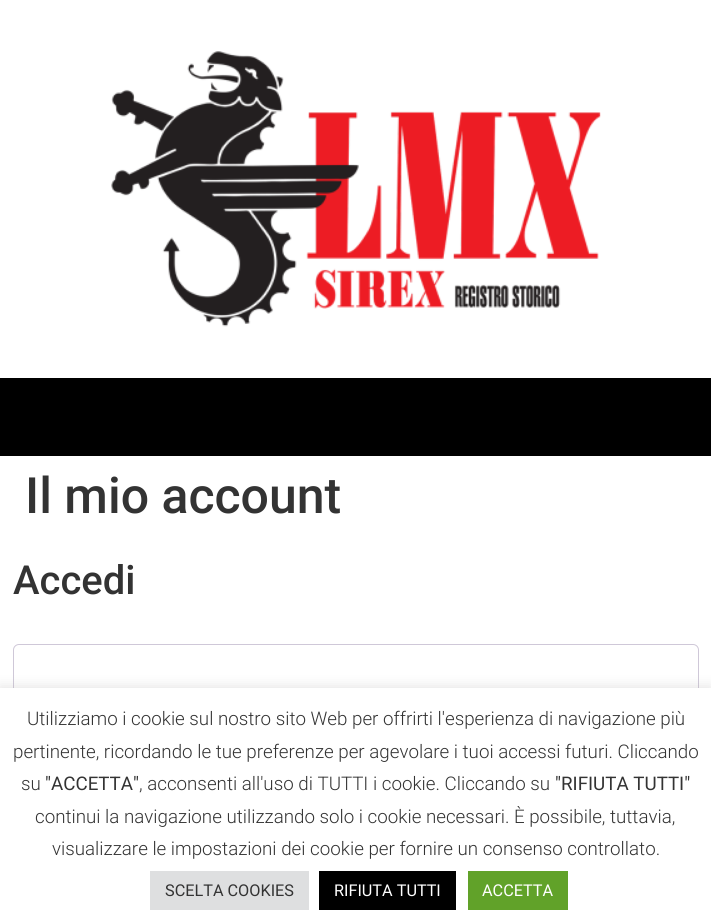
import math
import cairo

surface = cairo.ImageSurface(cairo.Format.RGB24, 711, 924)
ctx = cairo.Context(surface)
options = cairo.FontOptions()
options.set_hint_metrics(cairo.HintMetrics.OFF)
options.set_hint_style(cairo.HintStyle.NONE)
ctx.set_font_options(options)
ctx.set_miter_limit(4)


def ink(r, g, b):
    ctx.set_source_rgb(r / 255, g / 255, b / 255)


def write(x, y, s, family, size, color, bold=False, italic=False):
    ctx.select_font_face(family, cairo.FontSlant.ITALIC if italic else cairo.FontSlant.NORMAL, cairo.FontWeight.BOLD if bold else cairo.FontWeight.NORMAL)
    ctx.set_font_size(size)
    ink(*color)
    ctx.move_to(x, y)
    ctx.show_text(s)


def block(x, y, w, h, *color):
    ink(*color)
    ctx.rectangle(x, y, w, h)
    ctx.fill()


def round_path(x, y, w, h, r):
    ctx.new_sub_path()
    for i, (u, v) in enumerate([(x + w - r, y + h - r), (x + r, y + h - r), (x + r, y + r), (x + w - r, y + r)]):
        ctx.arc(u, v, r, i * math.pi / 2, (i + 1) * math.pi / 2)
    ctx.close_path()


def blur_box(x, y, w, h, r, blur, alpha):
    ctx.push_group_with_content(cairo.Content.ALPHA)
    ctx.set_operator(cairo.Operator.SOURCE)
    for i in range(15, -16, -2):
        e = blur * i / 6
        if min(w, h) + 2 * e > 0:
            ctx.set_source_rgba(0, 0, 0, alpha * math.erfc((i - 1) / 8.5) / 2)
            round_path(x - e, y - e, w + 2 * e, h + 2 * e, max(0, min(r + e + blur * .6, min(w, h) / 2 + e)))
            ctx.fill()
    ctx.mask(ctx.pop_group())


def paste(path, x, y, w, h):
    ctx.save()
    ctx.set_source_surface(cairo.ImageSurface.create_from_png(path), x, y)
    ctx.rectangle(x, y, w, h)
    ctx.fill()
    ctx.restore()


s1 = dict(family="Roboto Medium", size=50, color=(51, 51, 51))
s2 = dict(family="Roboto Medium", size=40, color=(51, 51, 51))
s3 = dict(family="Roboto Light", size=18.75, color=(51, 51, 51))
s4 = dict(family="Roboto", size=18.75, color=(51, 51, 51))
s5 = dict(family="Roboto", size=16.25, color=(51, 51, 51))
s6 = dict(family="Roboto", size=16.25, color=(255, 255, 255))

ink(255, 255, 255)
ctx.paint()
paste("pic1.png", 111, 51, 490, 276)
block(0, 378, 711, 78, 0, 0, 0)
write(25, 513, "Il mio account", **s1)
write(13, 594, "Accedi", **s2)
round_path(13.5, 644.5, 685, 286, 5.5)
ink(207, 200, 216)
ctx.set_line_width(1)
ctx.stroke()
ink(172, 171, 171)
blur_box(0, 686, 711, 238, 0, 6, 0.3)
block(0, 688, 711, 236, 255, 255, 255)
write(27, 725, "Utilizziamo i cookie sul nostro sito Web per offrirti l'esperienza di navigazione più", **s3)
write(13, 758, "pertinente, ricordando le tue preferenze per agevolare i tuoi accessi futuri. Cliccando", **s3)
write(21, 790, "su", **s3)
write(45, 790, "\"ACCETTA\"", **s4)
write(139, 790, ", acconsenti all'uso di TUTTI i cookie. Cliccando su", **s3)
write(555, 790, "\"RIFIUTA TUTTI\"", **s4)
write(35, 823, "continui la navigazione utilizzando solo i cookie necessari. È possibile, tuttavia,", **s3)
write(52, 855, "visualizzare le impostazioni dei cookie per fornire un consenso controllato.", **s3)
block(150, 871, 159, 39, 222, 223, 224)
write(165, 896, "SCELTA COOKIES", **s5)
block(319, 871, 137, 39, 0, 0, 0)
write(334, 896, "RIFIUTA TUTTI", **s6)
block(468, 871, 100, 39, 97, 162, 41)
write(482, 896, "ACCETTA", **s6)
surface.write_to_png("screenshot.png")
